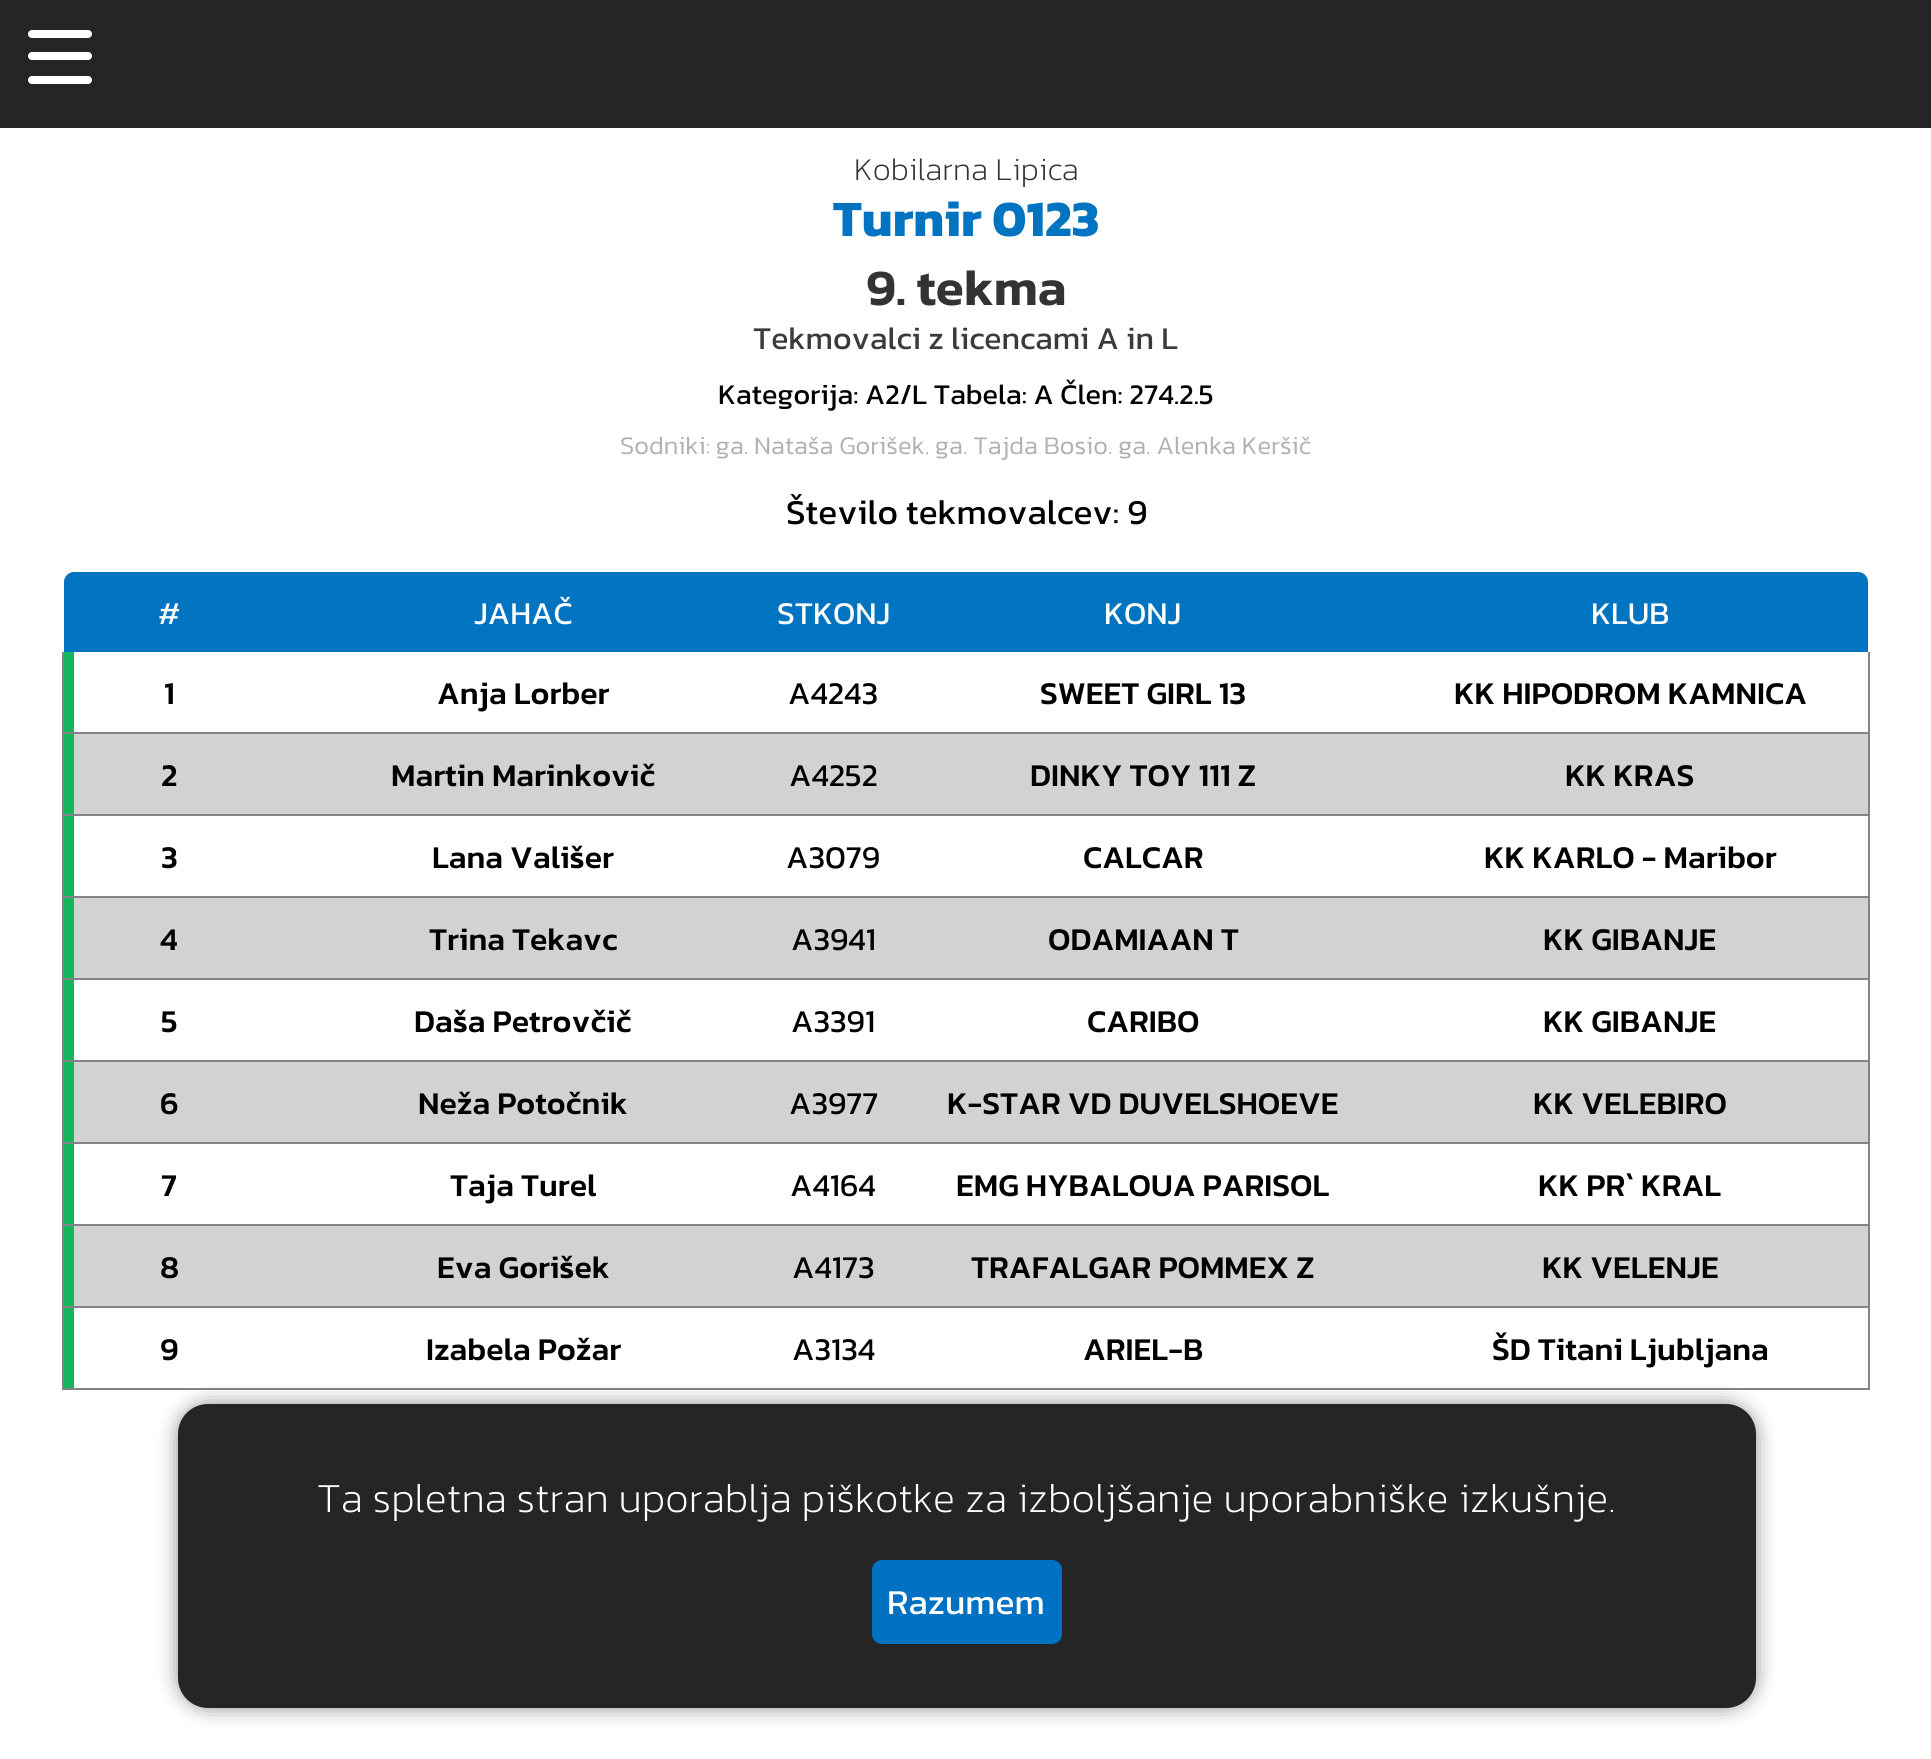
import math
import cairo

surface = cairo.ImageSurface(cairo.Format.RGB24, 1931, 1759)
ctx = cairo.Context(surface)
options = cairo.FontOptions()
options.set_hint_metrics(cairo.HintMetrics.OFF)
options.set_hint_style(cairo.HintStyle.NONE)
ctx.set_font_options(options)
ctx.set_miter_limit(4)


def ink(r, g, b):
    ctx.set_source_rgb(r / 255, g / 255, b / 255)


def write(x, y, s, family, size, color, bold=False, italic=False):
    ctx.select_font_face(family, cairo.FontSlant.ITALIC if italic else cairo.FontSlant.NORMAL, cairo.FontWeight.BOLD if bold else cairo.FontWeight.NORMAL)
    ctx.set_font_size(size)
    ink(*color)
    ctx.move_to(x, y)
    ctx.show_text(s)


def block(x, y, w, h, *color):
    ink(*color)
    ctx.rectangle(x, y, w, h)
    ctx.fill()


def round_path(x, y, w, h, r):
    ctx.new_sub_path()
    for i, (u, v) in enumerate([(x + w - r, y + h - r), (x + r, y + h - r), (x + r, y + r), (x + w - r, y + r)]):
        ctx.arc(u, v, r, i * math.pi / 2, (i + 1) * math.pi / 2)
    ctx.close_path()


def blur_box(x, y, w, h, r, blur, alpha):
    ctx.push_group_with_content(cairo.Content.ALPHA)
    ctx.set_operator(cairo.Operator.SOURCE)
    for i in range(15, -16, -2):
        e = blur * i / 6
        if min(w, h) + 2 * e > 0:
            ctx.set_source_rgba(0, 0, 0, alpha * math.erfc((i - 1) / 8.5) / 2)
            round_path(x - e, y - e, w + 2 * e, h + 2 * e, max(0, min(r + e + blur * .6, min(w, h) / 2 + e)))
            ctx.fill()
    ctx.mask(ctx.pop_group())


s1 = dict(family="Kanit ExtraLight", size=32, color=(51, 51, 51))
s2 = dict(family="Kanit", size=51.25, color=(0, 115, 193), bold=True)
s3 = dict(family="Kanit SemiBold", size=51.25, color=(51, 51, 51))
s4 = dict(family="Kanit", size=32, color=(59, 59, 59))
s5 = dict(family="Kanit", size=28.75, color=(0, 0, 0))
s6 = dict(family="Kanit Light", size=25.6, color=(176, 176, 176))
s7 = dict(family="Kanit", size=35.25, color=(0, 0, 0))
s8 = dict(family="Kanit ExtraLight", size=41.6, color=(255, 255, 255))
s9 = dict(family="Kanit", size=35.25, color=(255, 255, 255))
s10 = dict(family="Kanit", size=32, color=(255, 255, 255))
s11 = dict(family="Kanit Medium", size=32, color=(0, 0, 0))
s12 = dict(family="Kanit", size=32, color=(0, 0, 0))

ink(255, 255, 255)
ctx.paint()
block(0, 0, 1931, 128, 37, 37, 37)
ink(255, 255, 255)
round_path(28, 30, 64, 8, 4)
ctx.fill()
round_path(28, 52, 64, 8, 4)
ctx.fill()
round_path(28, 76, 64, 8, 4)
ctx.fill()
write(854, 180, "Kobilarna Lipica", **s1)
write(833, 236, "Turnir 0123", **s2)
write(866, 305, "9. tekma", **s3)
write(753, 349, "Tekmovalci z licencami A in L", **s4)
write(718, 404, "Kategorija: A2/L Tabela: A Člen: 274.2.5", **s5)
write(620, 454, "Sodniki: ga. Nataša Gorišek. ga. Tajda Bosio. ga. Alenka Keršič", **s6)
write(786, 524, "Število tekmovalcev: 9", **s7)
block(1868, 652, 2, 738, 130, 133, 135)
block(62, 1388, 1808, 2, 130, 133, 135)
ink(0, 0, 0)
blur_box(178, 1404, 1578, 304, 30, 10, 0.45)
ink(37, 37, 37)
round_path(178, 1404, 1578, 304, 30)
ctx.fill()
write(317, 1512, "Ta spletna stran uporablja piškotke za izboljšanje uporabniške izkušnje.", **s8)
ink(0, 113, 195)
round_path(872, 1560, 190, 84, 10)
ctx.fill()
write(887, 1614, "Razumem", **s9)
ink(0, 115, 193)
ctx.new_path()
ctx.move_to(74, 572)
ctx.line_to(1858, 572)
ctx.curve_to(1863.5, 572, 1868, 576.5, 1868, 582)
ctx.line_to(1868, 652)
ctx.line_to(64, 652)
ctx.line_to(64, 582)
ctx.curve_to(64, 576.5, 68.5, 572, 74, 572)
ctx.close_path()
ctx.fill()
write(158, 624, "#", **s10)
write(474, 624, "JAHAČ", **s10)
write(777, 624, "STKONJ", **s10)
write(1104, 624, "KONJ", **s10)
write(1591, 624, "KLUB", **s10)
block(62, 732, 1808, 2, 130, 133, 135)
block(62, 652, 2, 82, 130, 133, 135)
block(64, 652, 10, 80, 21, 181, 96)
write(164, 704, "1", **s11)
write(437, 704, "Anja Lorber", **s11)
write(788, 704, "A4243", **s12)
write(1040, 704, "SWEET GIRL 13", **s11)
write(1454, 704, "KK HIPODROM KAMNICA", **s11)
block(74, 734, 1794, 80, 210, 210, 210)
block(62, 814, 1808, 2, 130, 133, 135)
block(62, 734, 2, 82, 130, 133, 135)
block(64, 734, 10, 80, 21, 181, 96)
write(161, 786, "2", **s11)
write(391, 786, "Martin Marinkovič", **s11)
write(789, 786, "A4252", **s12)
write(1030, 786, "DINKY TOY 111 Z", **s11)
write(1565, 786, "KK KRAS", **s11)
block(62, 896, 1808, 2, 130, 133, 135)
block(62, 816, 2, 82, 130, 133, 135)
block(64, 816, 10, 80, 21, 181, 96)
write(161, 868, "3", **s11)
write(432, 868, "Lana Vališer", **s11)
write(786, 868, "A3079", **s12)
write(1083, 868, "CALCAR", **s11)
write(1484, 868, "KK KARLO - Maribor", **s11)
block(74, 898, 1794, 80, 210, 210, 210)
block(62, 978, 1808, 2, 130, 133, 135)
block(62, 898, 2, 82, 130, 133, 135)
block(64, 898, 10, 80, 21, 181, 96)
write(160, 950, "4", **s11)
write(429, 950, "Trina Tekavc", **s11)
write(791, 950, "A3941", **s12)
write(1048, 950, "ODAMIAAN T", **s11)
write(1543, 950, "KK GIBANJE", **s11)
block(62, 1060, 1808, 2, 130, 133, 135)
block(62, 980, 2, 82, 130, 133, 135)
block(64, 980, 10, 80, 21, 181, 96)
write(161, 1032, "5", **s11)
write(414, 1032, "Daša Petrovčič", **s11)
write(791, 1032, "A3391", **s12)
write(1087, 1032, "CARIBO", **s11)
write(1543, 1032, "KK GIBANJE", **s11)
block(74, 1062, 1794, 80, 210, 210, 210)
block(62, 1142, 1808, 2, 130, 133, 135)
block(62, 1062, 2, 82, 130, 133, 135)
block(64, 1062, 10, 80, 21, 181, 96)
write(160, 1114, "6", **s11)
write(418, 1114, "Neža Potočnik", **s11)
write(789, 1114, "A3977", **s12)
write(947, 1114, "K-STAR VD DUVELSHOEVE", **s11)
write(1533, 1114, "KK VELEBIRO", **s11)
block(62, 1224, 1808, 2, 130, 133, 135)
block(62, 1144, 2, 82, 130, 133, 135)
block(64, 1144, 10, 80, 21, 181, 96)
write(161, 1196, "7", **s11)
write(450, 1196, "Taja Turel", **s11)
write(790, 1196, "A4164", **s12)
write(956, 1196, "EMG HYBALOUA PARISOL", **s11)
write(1538, 1196, "KK PR` KRAL", **s11)
block(74, 1226, 1794, 80, 210, 210, 210)
block(62, 1306, 1808, 2, 130, 133, 135)
block(62, 1226, 2, 82, 130, 133, 135)
block(64, 1226, 10, 80, 21, 181, 96)
write(160, 1278, "8", **s11)
write(437, 1278, "Eva Gorišek", **s11)
write(792, 1278, "A4173", **s12)
write(971, 1278, "TRAFALGAR POMMEX Z", **s11)
write(1542, 1278, "KK VELENJE", **s11)
block(62, 1308, 2, 82, 130, 133, 135)
block(64, 1308, 10, 80, 21, 181, 96)
write(160, 1360, "9", **s11)
write(426, 1360, "Izabela Požar", **s11)
write(792, 1360, "A3134", **s12)
write(1083, 1360, "ARIEL-B", **s11)
write(1492, 1360, "ŠD Titani Ljubljana", **s11)
surface.write_to_png("screenshot.png")
